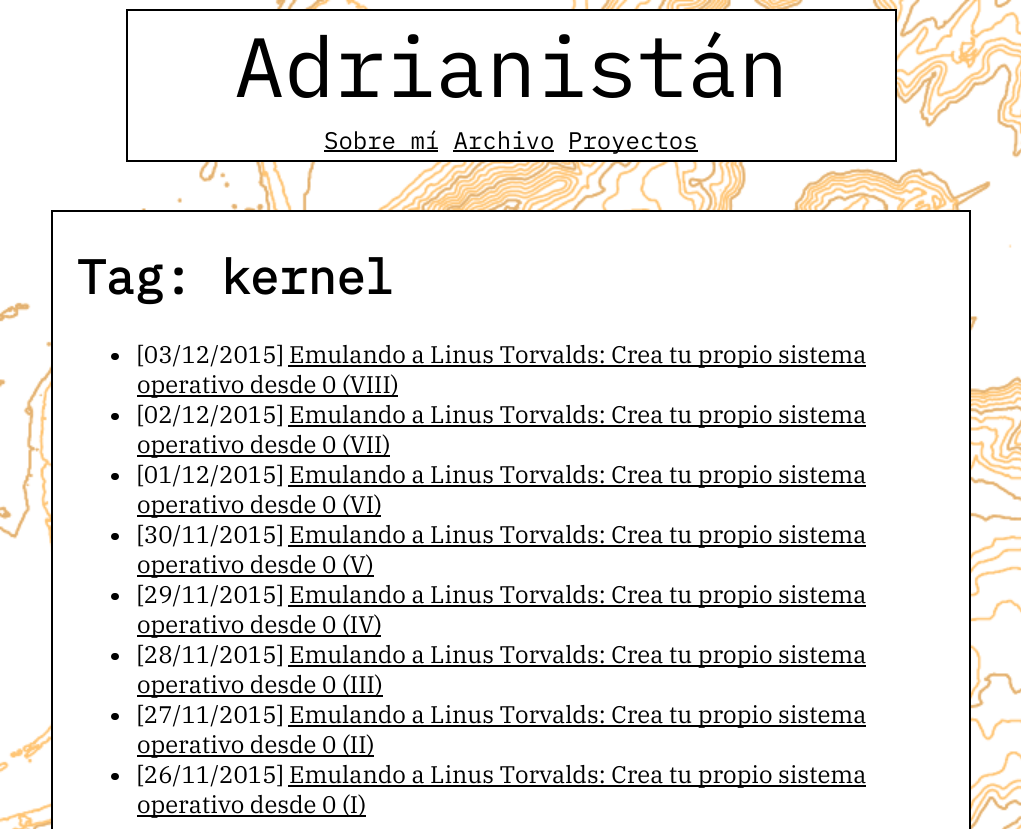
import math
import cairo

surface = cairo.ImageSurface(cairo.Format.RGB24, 1021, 829)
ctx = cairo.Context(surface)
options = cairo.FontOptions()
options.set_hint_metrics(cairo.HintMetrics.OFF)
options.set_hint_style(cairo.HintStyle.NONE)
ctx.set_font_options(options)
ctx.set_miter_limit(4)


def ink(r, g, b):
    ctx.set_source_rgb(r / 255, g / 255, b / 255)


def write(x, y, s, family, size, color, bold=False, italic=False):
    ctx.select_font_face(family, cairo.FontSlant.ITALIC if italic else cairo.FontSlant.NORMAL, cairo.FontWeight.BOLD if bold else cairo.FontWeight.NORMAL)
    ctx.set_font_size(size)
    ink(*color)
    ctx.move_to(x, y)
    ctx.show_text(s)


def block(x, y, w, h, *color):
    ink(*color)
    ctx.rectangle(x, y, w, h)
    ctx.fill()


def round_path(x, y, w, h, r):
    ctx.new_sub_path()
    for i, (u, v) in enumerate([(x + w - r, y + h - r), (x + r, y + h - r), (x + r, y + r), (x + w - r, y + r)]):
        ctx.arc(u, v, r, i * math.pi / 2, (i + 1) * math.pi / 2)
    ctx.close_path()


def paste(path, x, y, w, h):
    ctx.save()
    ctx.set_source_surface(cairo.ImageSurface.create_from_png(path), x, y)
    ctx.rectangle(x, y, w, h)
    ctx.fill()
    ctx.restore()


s1 = dict(family="IBM Plex Mono", size=84, color=(0, 0, 0))
s2 = dict(family="IBM Plex Mono", size=24, color=(0, 0, 0))
s3 = dict(family="IBM Plex Mono", size=48, color=(0, 0, 0), bold=True)
s4 = dict(family="IBM Plex Serif", size=24, color=(0, 0, 0))

ink(255, 255, 255)
ctx.paint()
paste("pic1.png", 0, 0, 1021, 829)
block(190, 11, 705, 149, 255, 255, 255)
ctx.rectangle(127, 10, 769, 151)
ink(0, 0, 0)
ctx.stroke()
write(234, 97, "Adrianistán", **s1)
write(324, 149, "Sobre mí Archivo", **s2)
block(324, 150, 114, 2, 0, 0, 0)
block(569, 150, 129, 2, 0, 0, 0)
write(568, 149, "Proyectos", **s2)
block(453, 150, 101, 2, 0, 0, 0)
ink(255, 255, 255)
ctx.rectangle(52, 211, 918, 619)
ctx.fill_preserve()
ink(0, 0, 0)
ctx.stroke()
write(77, 294, "Tag: kernel", **s3)
round_path(111, 353, 8, 7, 3.5)
ctx.fill()
write(137, 363, "[03/12/2015]", **s4)
block(288, 365, 578, 2, 0, 0, 0)
write(289, 363, "Emulando a Linus Torvalds: Crea tu propio sistema", **s4)
block(137, 395, 261, 2, 0, 0, 0)
write(137, 393, "operativo desde 0 (VIII)", **s4)
round_path(111, 413, 8, 7, 3.5)
ctx.fill()
write(137, 423, "[02/12/2015]", **s4)
block(288, 425, 578, 2, 0, 0, 0)
write(289, 423, "Emulando a Linus Torvalds: Crea tu propio sistema", **s4)
block(137, 455, 253, 2, 0, 0, 0)
write(137, 453, "operativo desde 0 (VII)", **s4)
round_path(111, 473, 8, 7, 3.5)
ctx.fill()
write(137, 483, "[01/12/2015]", **s4)
block(288, 485, 578, 2, 0, 0, 0)
write(289, 483, "Emulando a Linus Torvalds: Crea tu propio sistema", **s4)
block(137, 515, 244, 2, 0, 0, 0)
write(137, 513, "operativo desde 0 (VI)", **s4)
round_path(111, 533, 8, 7, 3.5)
ctx.fill()
write(137, 543, "[30/11/2015]", **s4)
block(288, 545, 578, 2, 0, 0, 0)
write(289, 543, "Emulando a Linus Torvalds: Crea tu propio sistema", **s4)
block(137, 575, 237, 2, 0, 0, 0)
write(137, 573, "operativo desde 0 (V)", **s4)
round_path(111, 593, 8, 7, 3.5)
ctx.fill()
write(137, 603, "[29/11/2015]", **s4)
block(288, 605, 578, 2, 0, 0, 0)
write(289, 603, "Emulando a Linus Torvalds: Crea tu propio sistema", **s4)
block(137, 635, 244, 2, 0, 0, 0)
write(137, 633, "operativo desde 0 (IV)", **s4)
round_path(111, 653, 8, 7, 3.5)
ctx.fill()
write(137, 663, "[28/11/2015]", **s4)
block(288, 665, 578, 2, 0, 0, 0)
write(289, 663, "Emulando a Linus Torvalds: Crea tu propio sistema", **s4)
block(137, 695, 246, 2, 0, 0, 0)
write(137, 693, "operativo desde 0 (III)", **s4)
round_path(111, 713, 8, 7, 3.5)
ctx.fill()
write(137, 723, "[27/11/2015]", **s4)
block(288, 725, 578, 2, 0, 0, 0)
write(289, 723, "Emulando a Linus Torvalds: Crea tu propio sistema", **s4)
block(137, 755, 237, 2, 0, 0, 0)
write(137, 753, "operativo desde 0 (II)", **s4)
round_path(111, 773, 8, 7, 3.5)
ctx.fill()
write(137, 783, "[26/11/2015]", **s4)
block(288, 785, 578, 2, 0, 0, 0)
write(289, 783, "Emulando a Linus Torvalds: Crea tu propio sistema", **s4)
block(137, 815, 229, 2, 0, 0, 0)
write(137, 813, "operativo desde 0 (I)", **s4)
surface.write_to_png("screenshot.png")
